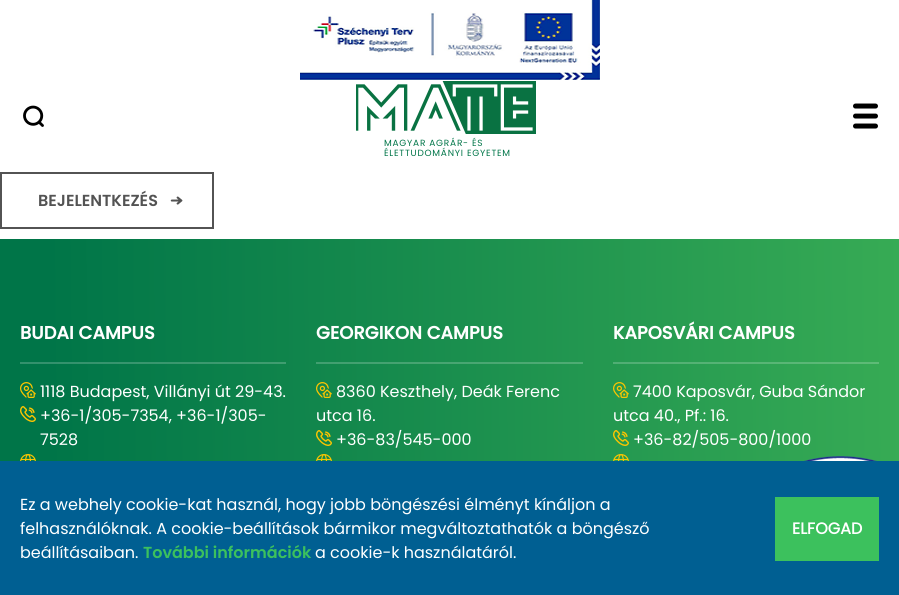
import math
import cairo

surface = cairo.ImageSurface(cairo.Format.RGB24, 899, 595)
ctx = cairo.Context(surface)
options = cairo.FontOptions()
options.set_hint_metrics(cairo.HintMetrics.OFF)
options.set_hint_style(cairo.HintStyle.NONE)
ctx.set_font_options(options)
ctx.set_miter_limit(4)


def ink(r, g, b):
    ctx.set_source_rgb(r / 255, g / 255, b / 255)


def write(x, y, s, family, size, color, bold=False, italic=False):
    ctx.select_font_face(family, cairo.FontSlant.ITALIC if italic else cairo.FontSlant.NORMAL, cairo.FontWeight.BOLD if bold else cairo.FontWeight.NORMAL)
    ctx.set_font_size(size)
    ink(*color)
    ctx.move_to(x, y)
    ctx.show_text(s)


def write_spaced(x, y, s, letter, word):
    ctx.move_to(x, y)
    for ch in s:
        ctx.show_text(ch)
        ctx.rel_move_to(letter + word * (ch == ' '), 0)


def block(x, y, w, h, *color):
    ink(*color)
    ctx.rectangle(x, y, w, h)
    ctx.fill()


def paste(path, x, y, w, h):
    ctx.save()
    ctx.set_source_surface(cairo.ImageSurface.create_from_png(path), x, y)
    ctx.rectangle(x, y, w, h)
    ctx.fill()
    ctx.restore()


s1 = dict(family="Poppins SemiBold", size=16, color=(83, 83, 83))
s2 = dict(family="Poppins", size=18, color=(255, 255, 255), bold=True)
s3 = dict(family="Poppins", size=16, color=(255, 255, 255))
s4 = dict(family="Poppins SemiBold", size=16, color=(60, 193, 93))
s5 = dict(family="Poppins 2", size=16, color=(255, 255, 255), bold=True)

ink(255, 255, 255)
ctx.paint()
paste("pic1.png", 300, 0, 300, 80)
paste("pic2.png", 23, 105, 21, 22)
paste("pic3.png", 853, 103, 25, 26)
paste("pic4.png", 356, 81, 180, 53)
ctx.select_font_face("Poppins")
ctx.set_font_size(9)
ink(0, 117, 72)
write_spaced(384, 146, "MAGYAR AGRÁR- ÉS", 0.75, 0)
write_spaced(384, 156, "ÉLETTUDOMÁNYI EGYETEM", 0.75, 0)
ctx.rectangle(1, 173, 212, 55)
ink(83, 83, 83)
ctx.stroke()
write(38, 206, "BEJELENTKEZÉS", **s1)
paste("pic5.png", 170, 196, 13, 9)
gradient = cairo.LinearGradient(-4.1, 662, 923, 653)
gradient.add_color_stop_rgba(0.06, 0, 0.459, 0.282, 1)
gradient.add_color_stop_rgba(1, 0.22, 0.675, 0.333, 1)
ctx.set_source(gradient)
ctx.rectangle(0, 239, 899, 222)
ctx.fill()
gradient = cairo.LinearGradient(-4.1, 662, 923, 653)
gradient.add_color_stop_rgba(0.06, 0.2, 0.569, 0.427, 1)
gradient.add_color_stop_rgba(1, 0.376, 0.741, 0.467, 1)
ctx.set_source(gradient)
ctx.rectangle(613, 362, 266, 2)
ctx.fill()
ctx.rectangle(316, 362, 267, 2)
ctx.fill()
ctx.rectangle(20, 362, 266, 2)
ctx.fill()
write(20, 339, "BUDAI CAMPUS", **s2)
paste("pic6.png", 20, 382, 16, 16)
write(40, 397, "1118 Budapest, Villányi út 29-43.", **s3)
paste("pic7.png", 20, 406, 16, 16)
write(40, 421, "+36-1/305-7354, +36-1/305-", **s3)
write(40, 445, "7528", **s3)
paste("pic8.png", 20, 454, 16, 7)
write(316, 339, "GEORGIKON CAMPUS", **s2)
paste("pic9.png", 316, 382, 16, 16)
write(336, 397, "8360 Keszthely, Deák Ferenc", **s3)
write(316, 421, "utca 16.", **s3)
paste("pic10.png", 316, 430, 16, 16)
write(336, 445, "+36-83/545-000", **s3)
paste("pic11.png", 316, 454, 16, 7)
write(613, 339, "KAPOSVÁRI CAMPUS", **s2)
paste("pic12.png", 613, 382, 16, 16)
write(633, 397, "7400 Kaposvár, Guba Sándor", **s3)
write(613, 421, "utca 40., Pf.: 16.", **s3)
paste("pic13.png", 613, 430, 16, 16)
write(633, 445, "+36-82/505-800/1000", **s3)
paste("pic14.png", 613, 454, 16, 7)
paste("pic15.png", 804, 456, 73, 5)
block(0, 461, 899, 134, 0, 95, 146)
write(20, 510, "Ez a webhely cookie-kat használ, hogy jobb böngészési élményt kínáljon a", **s3)
write(20, 534, "felhasználóknak. A cookie-beállítások bármikor megváltoztathatók a böngésző", **s3)
write(20, 558, "beállításaiban.", **s3)
write(143, 558, "További információk", **s4)
write(315, 558, "a cookie-k használatáról.", **s3)
block(775, 497, 104, 64, 60, 193, 93)
write(792, 534, "ELFOGAD", **s5)
surface.write_to_png("screenshot.png")
